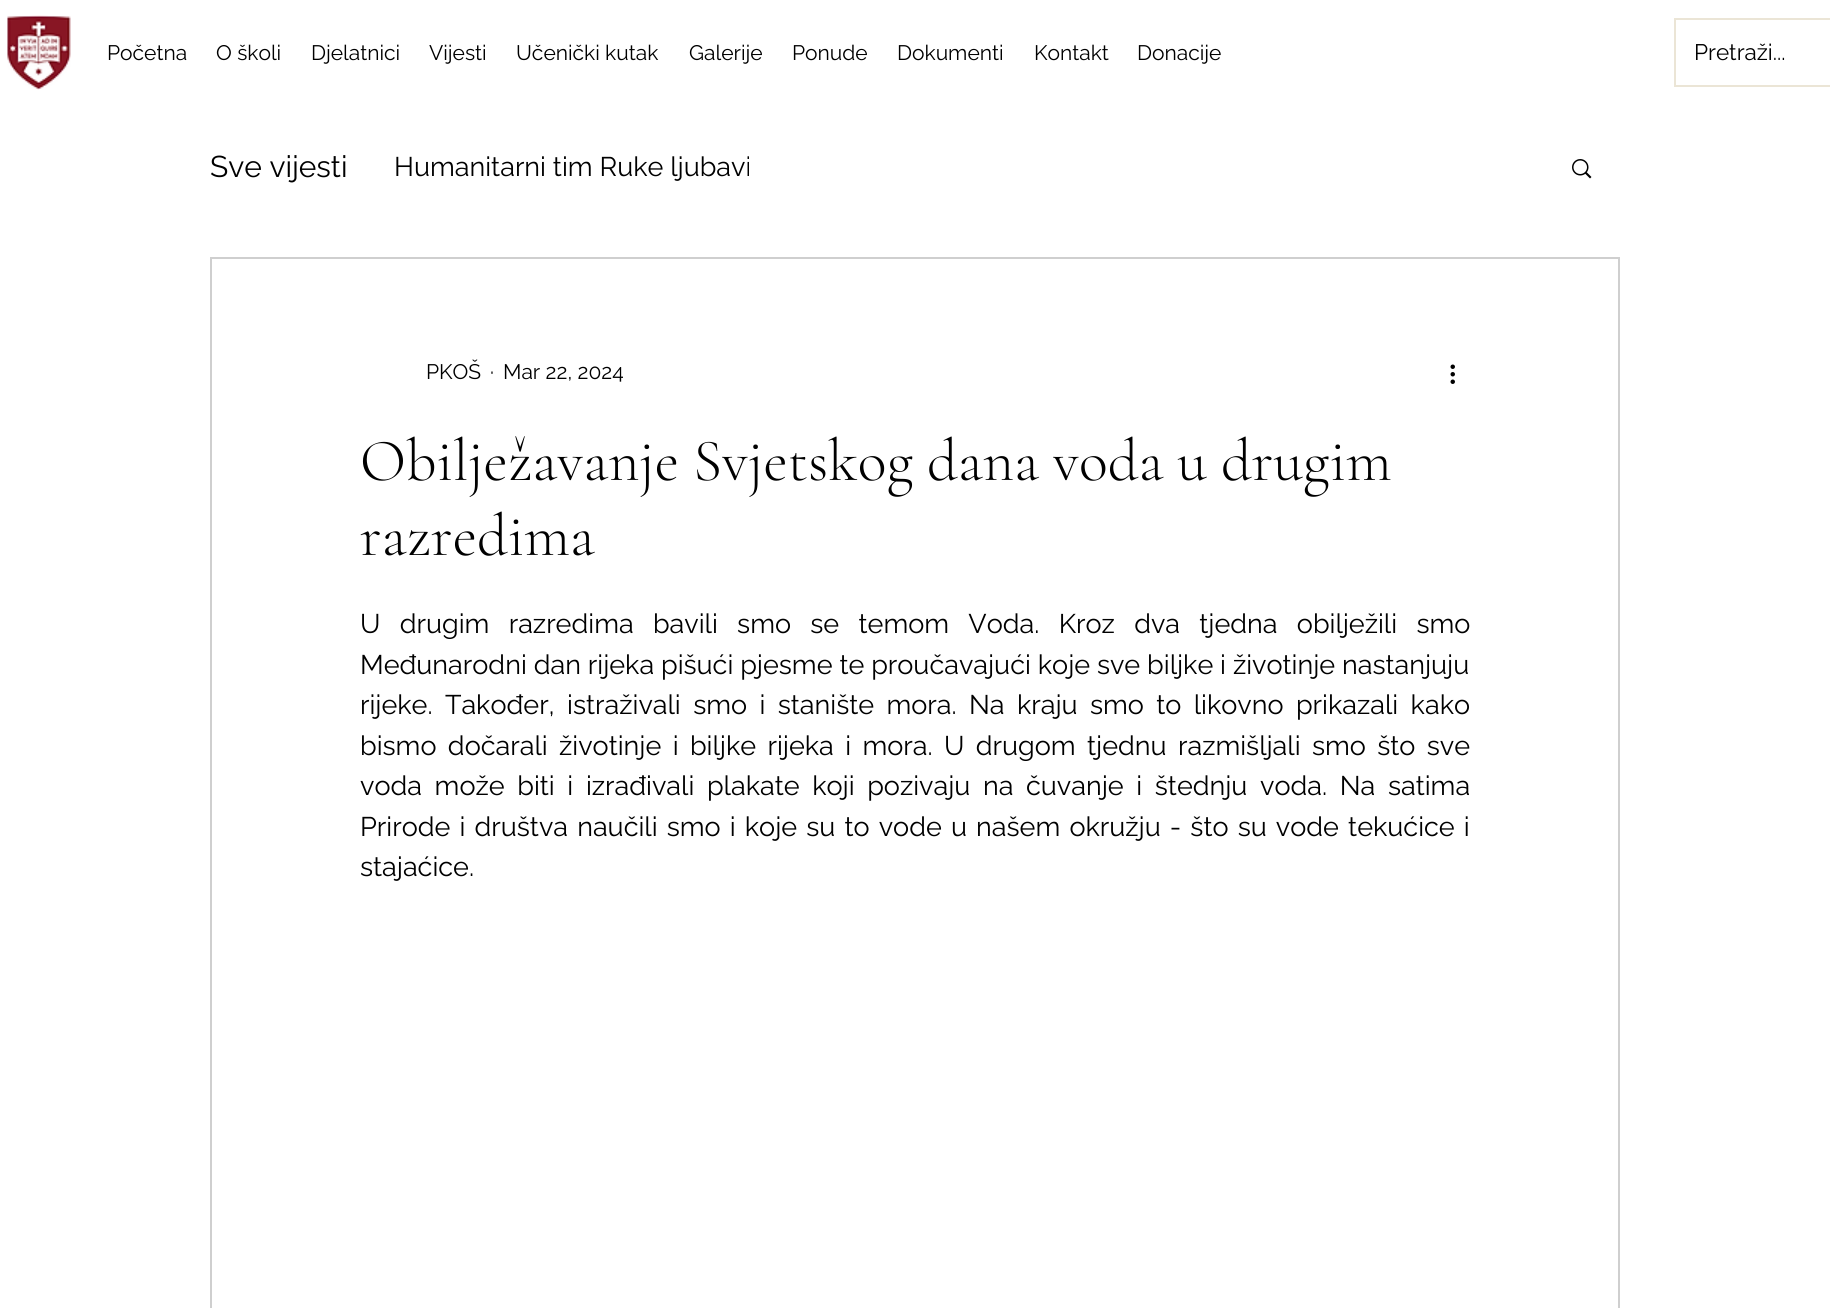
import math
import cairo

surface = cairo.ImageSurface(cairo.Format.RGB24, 1830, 1308)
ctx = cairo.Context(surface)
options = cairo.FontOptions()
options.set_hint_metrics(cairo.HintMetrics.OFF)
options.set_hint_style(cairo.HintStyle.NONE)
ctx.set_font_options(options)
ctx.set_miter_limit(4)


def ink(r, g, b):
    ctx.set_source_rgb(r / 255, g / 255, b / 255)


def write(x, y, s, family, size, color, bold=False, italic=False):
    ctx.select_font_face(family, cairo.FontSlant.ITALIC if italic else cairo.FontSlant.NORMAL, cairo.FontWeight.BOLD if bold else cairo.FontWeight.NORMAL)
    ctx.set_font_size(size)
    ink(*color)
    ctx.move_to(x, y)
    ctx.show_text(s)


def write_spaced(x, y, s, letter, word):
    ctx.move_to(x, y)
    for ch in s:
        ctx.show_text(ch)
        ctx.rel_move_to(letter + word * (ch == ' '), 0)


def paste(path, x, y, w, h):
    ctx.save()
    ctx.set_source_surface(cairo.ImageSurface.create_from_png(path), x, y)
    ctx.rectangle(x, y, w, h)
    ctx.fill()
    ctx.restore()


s1 = dict(family="Raleway", size=21, color=(0, 0, 0))
s2 = dict(family="Raleway", size=22.5, color=(0, 0, 0))
s3 = dict(family="Raleway", size=30, color=(0, 0, 0))
s4 = dict(family="Raleway", size=27, color=(0, 0, 0))
s5 = dict(family="Cormorant Garamond Light", size=60, color=(0, 0, 0))

ink(255, 255, 255)
ctx.paint()
paste("pic1.png", 7, 15, 64, 75)
write(107, 60, "Početna", **s1)
write(216, 60, "O školi", **s1)
write(311, 60, "Djelatnici", **s1)
write(429, 60, "Vijesti", **s1)
write(516, 60, "Učenički kutak", **s1)
write(689, 60, "Galerije", **s1)
write(792, 60, "Ponude", **s1)
write(897, 60, "Dokumenti", **s1)
write(1034, 60, "Kontakt", **s1)
write(1137, 60, "Donacije", **s1)
ctx.rectangle(1675, 19, 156, 67)
ink(235, 229, 214)
ctx.stroke()
write(1694, 60, "Pretraži...", **s2)
write(210, 177, "Sve vijesti", **s3)
write(394, 176, "Humanitarni tim Ruke ljubavi", **s4)
paste("pic2.png", 1572, 159, 20, 20)
ctx.rectangle(211, 258, 1408, 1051)
ink(207, 207, 207)
ctx.stroke()
write(426, 379, "PKOŠ", **s1)
write(490, 379, "·", **s1)
write(503, 379, "Mar 22, 2024", **s1)
paste("pic3.png", 1450, 364, 5, 20)
write(360, 480, "Obilježavanje Svjetskog dana voda u drugim", **s5)
write(360, 555, "razredima", **s5)
ctx.select_font_face("Raleway")
ctx.set_font_size(27)
write_spaced(360, 633, "U drugim razredima bavili smo se temom Voda. Kroz dva tjedna obilježili smo", 0, 12.4)
write(360, 674, "Međunarodni dan rijeka pišući pjesme te proučavajući koje sve biljke i životinje nastanjuju", **s4)
write_spaced(360, 714, "rijeke. Također, istraživali smo i stanište mora. Na kraju smo to likovno prikazali kako", 0, 5.5)
write_spaced(360, 755, "bismo dočarali životinje i biljke rijeka i mora. U drugom tjednu razmišljali smo što sve", 0, 4.5)
write_spaced(360, 795, "voda može biti i izrađivali plakate koji pozivaju na čuvanje i štednju voda. Na satima", 0, 5.75)
write_spaced(360, 836, "Prirode i društva naučili smo i koje su to vode u našem okružju - što su vode tekućice i", 0, 2.25)
write(360, 876, "stajaćice.", **s4)
surface.write_to_png("screenshot.png")
